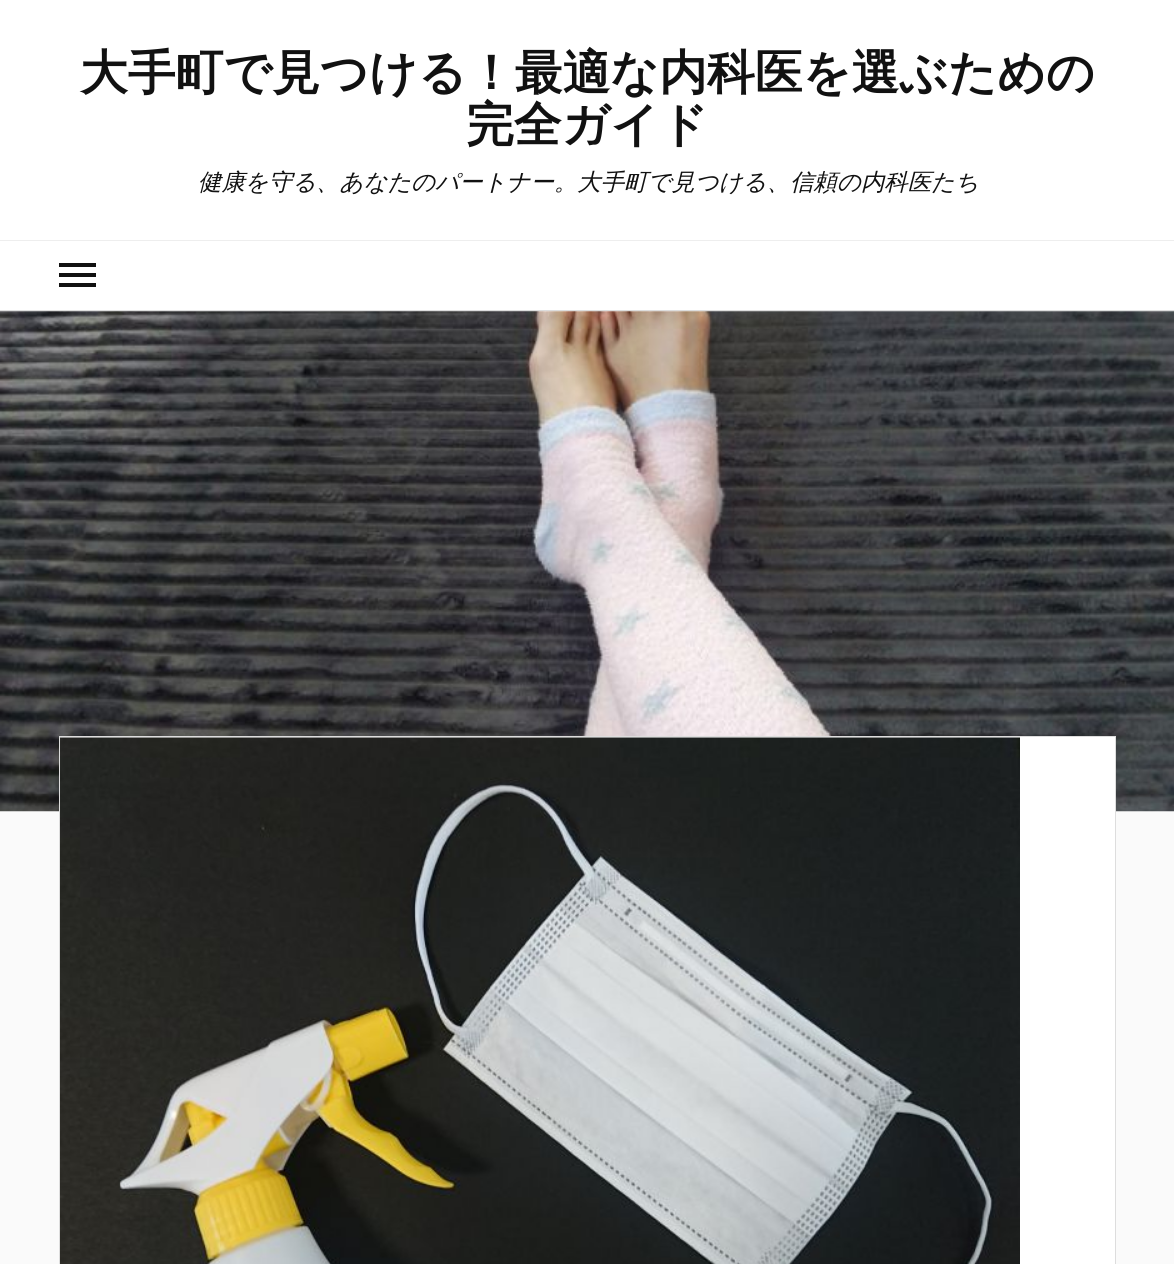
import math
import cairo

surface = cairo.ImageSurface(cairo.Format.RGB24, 1174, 1264)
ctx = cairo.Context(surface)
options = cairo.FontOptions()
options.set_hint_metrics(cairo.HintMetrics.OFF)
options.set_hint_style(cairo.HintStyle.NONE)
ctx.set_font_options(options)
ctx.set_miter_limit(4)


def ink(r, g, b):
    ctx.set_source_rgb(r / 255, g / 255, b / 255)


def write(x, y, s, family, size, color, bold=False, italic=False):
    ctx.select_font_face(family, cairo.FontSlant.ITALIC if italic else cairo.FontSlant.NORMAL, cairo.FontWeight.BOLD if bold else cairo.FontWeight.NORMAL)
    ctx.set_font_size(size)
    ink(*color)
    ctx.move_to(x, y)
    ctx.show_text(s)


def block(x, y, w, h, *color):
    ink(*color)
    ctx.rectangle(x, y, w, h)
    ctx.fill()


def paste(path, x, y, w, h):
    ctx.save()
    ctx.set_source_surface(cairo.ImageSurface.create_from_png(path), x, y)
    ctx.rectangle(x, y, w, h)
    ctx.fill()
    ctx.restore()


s1 = dict(family="WenQuanYi Zen Hei", size=47.8, color=(17, 17, 17), bold=True)
s2 = dict(family="WenQuanYi Zen Hei Medium", size=23.4, color=(17, 17, 17), italic=True)

ink(250, 250, 250)
ctx.paint()
block(0, 0, 1174, 240, 255, 255, 255)
write(80, 89, "大手町で見つける！最適な内科医を選ぶための", **s1)
write(466, 141, "完全ガイド", **s1)
write(198, 190, "健康を守る、あなたのパートナー。大手町で見つける、信頼の内科医たち", **s2)
block(0, 241, 1174, 69, 255, 255, 255)
block(0, 240, 1174, 1, 238, 238, 238)
block(59, 263, 37, 4, 17, 17, 17)
block(59, 273, 37, 4, 17, 17, 17)
block(59, 283, 37, 4, 17, 17, 17)
block(0, 310, 1174, 1, 221, 221, 221)
paste("pic1.png", 0, 311, 1174, 501)
ink(255, 255, 255)
ctx.rectangle(59.5, 736.5, 1056, 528)
ctx.fill_preserve()
ink(221, 221, 221)
ctx.set_line_width(1)
ctx.stroke()
paste("pic2.png", 60, 737, 960, 527)
surface.write_to_png("screenshot.png")
